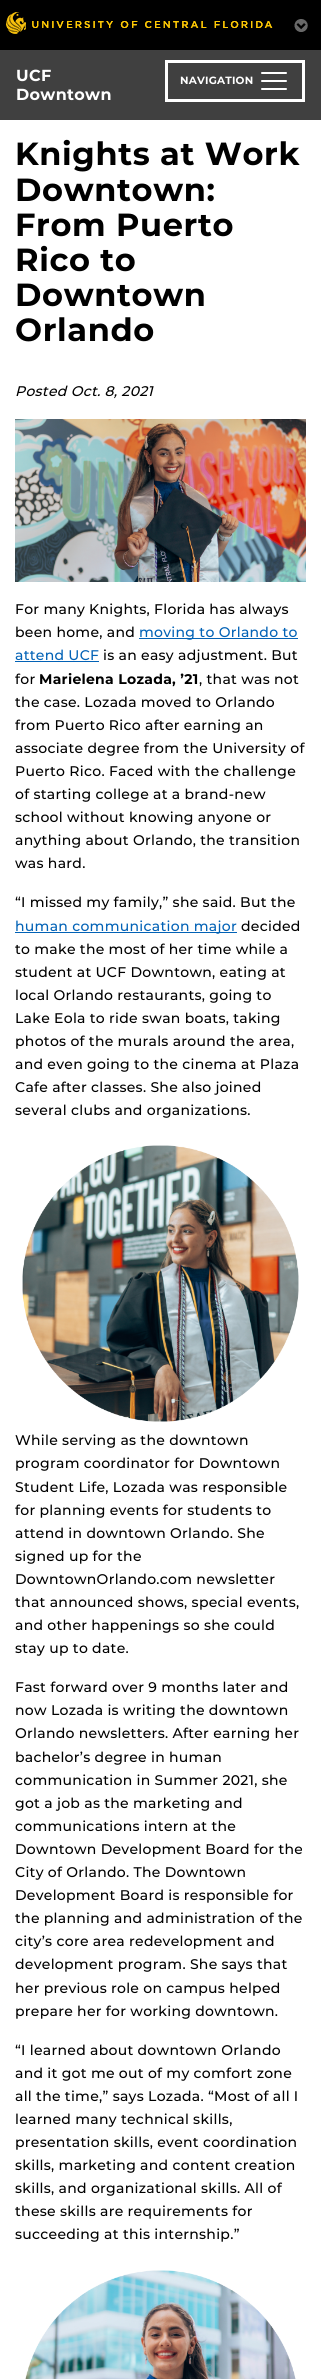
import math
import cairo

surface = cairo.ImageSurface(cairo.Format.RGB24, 321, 2379)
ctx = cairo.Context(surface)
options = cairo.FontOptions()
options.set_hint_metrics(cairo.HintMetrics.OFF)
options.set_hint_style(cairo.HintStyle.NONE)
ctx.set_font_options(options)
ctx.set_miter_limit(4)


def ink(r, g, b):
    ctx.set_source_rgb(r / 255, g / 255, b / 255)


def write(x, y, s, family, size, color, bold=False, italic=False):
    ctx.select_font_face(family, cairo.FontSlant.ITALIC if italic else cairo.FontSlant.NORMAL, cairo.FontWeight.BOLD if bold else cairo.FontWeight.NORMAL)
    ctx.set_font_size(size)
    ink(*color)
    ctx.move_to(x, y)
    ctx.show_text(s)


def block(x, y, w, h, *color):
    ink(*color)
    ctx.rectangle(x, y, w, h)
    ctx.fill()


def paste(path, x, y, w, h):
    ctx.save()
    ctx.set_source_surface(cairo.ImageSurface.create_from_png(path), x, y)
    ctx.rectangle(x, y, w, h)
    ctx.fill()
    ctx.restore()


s1 = dict(family="Montserrat", size=16, color=(255, 255, 255), bold=True)
s2 = dict(family="Montserrat", size=10.5, color=(255, 255, 255), bold=True)
s3 = dict(family="Montserrat", size=32, color=(0, 0, 0), bold=True)
s4 = dict(family="Montserrat Medium", size=14, color=(0, 0, 0), italic=True)
s5 = dict(family="Montserrat Medium", size=14, color=(0, 0, 0))
s6 = dict(family="Montserrat Medium", size=14, color=(2, 98, 182))
s7 = dict(family="Montserrat", size=14, color=(0, 0, 0), bold=True)

ink(255, 255, 255)
ctx.paint()
block(0, 0, 321, 50, 0, 0, 0)
paste("pic1.png", 6, 12, 267, 22)
paste("pic2.png", 294, 19, 14, 13)
block(0, 50, 321, 70, 64, 64, 64)
write(16, 81, "UCF", **s1)
write(16, 100, "Downtown", **s1)
ctx.rectangle(166.5, 61.5, 137, 39)
ctx.set_line_width(3)
ctx.stroke()
write(180, 84, "NAVIGATION", **s2)
paste("pic3.png", 261, 72, 26, 18)
write(15, 165, "Knights at Work", **s3)
write(15, 201, "Downtown:", **s3)
write(15, 236, "From Puerto", **s3)
write(15, 271, "Rico to", **s3)
write(15, 306, "Downtown", **s3)
write(15, 341, "Orlando", **s3)
write(15, 396, "Posted Oct. 8, 2021", **s4)
paste("pic4.png", 15, 419, 291, 163)
write(15, 614, "For many Knights, Florida has always", **s5)
write(15, 637, "been home, and", **s5)
block(139, 638, 159, 1, 2, 98, 182)
write(139, 637, "moving to Orlando to", **s6)
write(15, 660, "attend UCF", **s6)
block(15, 661, 84, 1, 2, 98, 182)
write(103, 660, "is an easy adjustment. But", **s5)
write(15, 684, "for", **s5)
write(39, 684, "Marielena Lozada, ’21", **s7)
write(199, 684, ", that was not", **s5)
write(15, 707, "the case. Lozada moved to Orlando", **s5)
write(15, 730, "from Puerto Rico after earning an", **s5)
write(15, 753, "associate degree from the University of", **s5)
write(15, 776, "Puerto Rico. Faced with the challenge", **s5)
write(15, 799, "of starting college at a brand-new", **s5)
write(15, 822, "school without knowing anyone or", **s5)
write(15, 845, "anything about Orlando, the transition", **s5)
write(15, 868, "was hard.", **s5)
write(15, 907, "“I missed my family,” she said. But the", **s5)
block(15, 932, 222, 1, 2, 98, 182)
write(15, 931, "human communication major", **s6)
write(241, 931, "decided", **s5)
write(15, 954, "to make the most of her time while a", **s5)
write(15, 977, "student at UCF Downtown, eating at", **s5)
write(15, 1000, "local Orlando restaurants, going to", **s5)
write(15, 1023, "Lake Eola to ride swan boats, taking", **s5)
write(15, 1046, "photos of the murals around the area,", **s5)
write(15, 1069, "and even going to the cinema at Plaza", **s5)
write(15, 1092, "Cafe after classes. She also joined", **s5)
write(15, 1115, "several clubs and organizations.", **s5)
paste("pic5.png", 22, 1145, 277, 277)
write(15, 1445, "While serving as the downtown", **s5)
write(15, 1468, "program coordinator for Downtown", **s5)
write(15, 1492, "Student Life, Lozada was responsible", **s5)
write(15, 1515, "for planning events for students to", **s5)
write(15, 1538, "attend in downtown Orlando. She", **s5)
write(15, 1561, "signed up for the", **s5)
write(15, 1584, "DowntownOrlando.com newsletter", **s5)
write(15, 1607, "that announced shows, special events,", **s5)
write(15, 1630, "and other happenings so she could", **s5)
write(15, 1653, "stay up to date.", **s5)
write(15, 1692, "Fast forward over 9 months later and", **s5)
write(15, 1715, "now Lozada is writing the downtown", **s5)
write(15, 1738, "Orlando newsletters. After earning her", **s5)
write(15, 1762, "bachelor’s degree in human", **s5)
write(15, 1785, "communication in Summer 2021, she", **s5)
write(15, 1808, "got a job as the marketing and", **s5)
write(15, 1831, "communications intern at the", **s5)
write(15, 1854, "Downtown Development Board for the", **s5)
write(15, 1877, "City of Orlando. The Downtown", **s5)
write(15, 1900, "Development Board is responsible for", **s5)
write(15, 1923, "the planning and administration of the", **s5)
write(15, 1946, "city’s core area redevelopment and", **s5)
write(15, 1969, "development program. She says that", **s5)
write(15, 1993, "her previous role on campus helped", **s5)
write(15, 2016, "prepare her for working downtown.", **s5)
write(15, 2055, "“I learned about downtown Orlando", **s5)
write(15, 2078, "and it got me out of my comfort zone", **s5)
write(15, 2101, "all the time,” says Lozada. “Most of all I", **s5)
write(15, 2124, "learned many technical skills,", **s5)
write(15, 2147, "presentation skills, event coordination", **s5)
write(15, 2170, "skills, marketing and content creation", **s5)
write(15, 2193, "skills, and organizational skills. All of", **s5)
write(15, 2216, "these skills are requirements for", **s5)
write(15, 2239, "succeeding at this internship.”", **s5)
paste("pic6.png", 25, 2270, 271, 109)
surface.write_to_png("screenshot.png")
